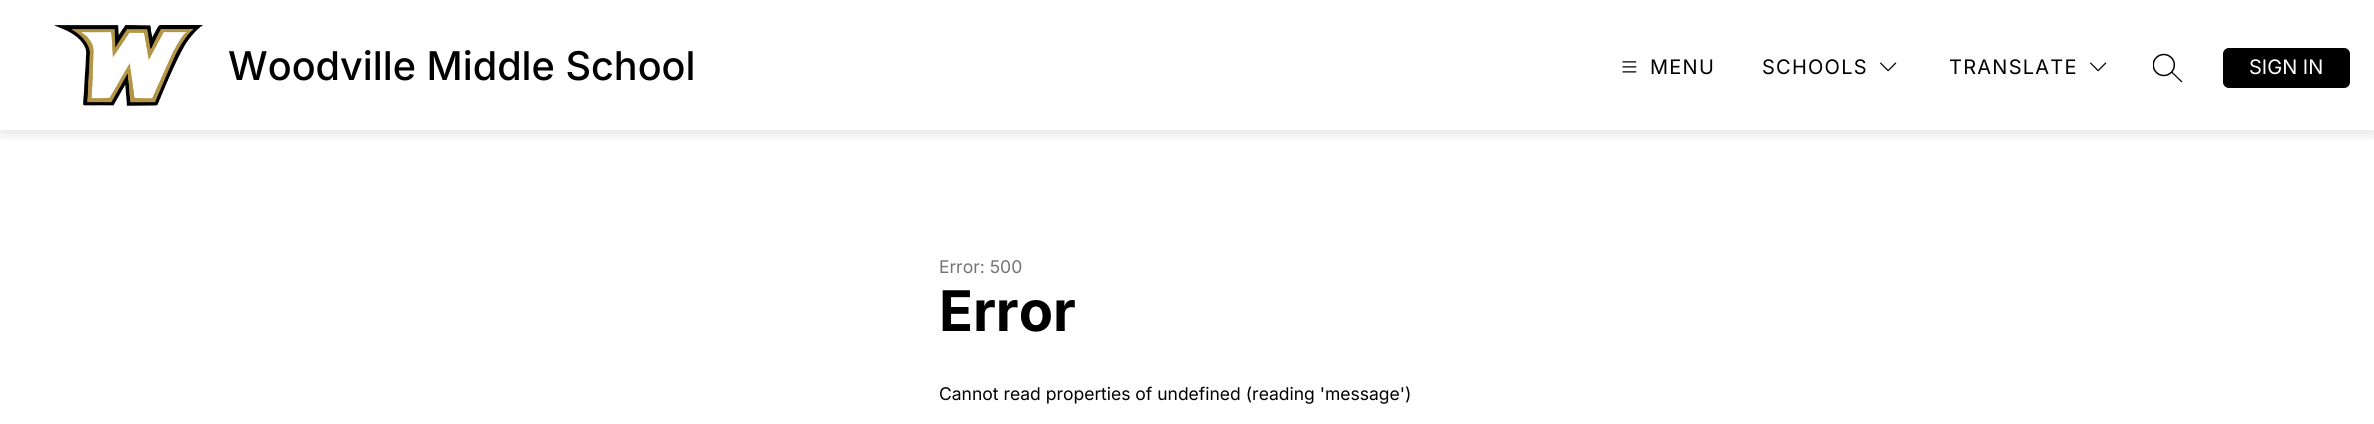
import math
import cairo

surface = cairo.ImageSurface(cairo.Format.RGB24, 2374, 424)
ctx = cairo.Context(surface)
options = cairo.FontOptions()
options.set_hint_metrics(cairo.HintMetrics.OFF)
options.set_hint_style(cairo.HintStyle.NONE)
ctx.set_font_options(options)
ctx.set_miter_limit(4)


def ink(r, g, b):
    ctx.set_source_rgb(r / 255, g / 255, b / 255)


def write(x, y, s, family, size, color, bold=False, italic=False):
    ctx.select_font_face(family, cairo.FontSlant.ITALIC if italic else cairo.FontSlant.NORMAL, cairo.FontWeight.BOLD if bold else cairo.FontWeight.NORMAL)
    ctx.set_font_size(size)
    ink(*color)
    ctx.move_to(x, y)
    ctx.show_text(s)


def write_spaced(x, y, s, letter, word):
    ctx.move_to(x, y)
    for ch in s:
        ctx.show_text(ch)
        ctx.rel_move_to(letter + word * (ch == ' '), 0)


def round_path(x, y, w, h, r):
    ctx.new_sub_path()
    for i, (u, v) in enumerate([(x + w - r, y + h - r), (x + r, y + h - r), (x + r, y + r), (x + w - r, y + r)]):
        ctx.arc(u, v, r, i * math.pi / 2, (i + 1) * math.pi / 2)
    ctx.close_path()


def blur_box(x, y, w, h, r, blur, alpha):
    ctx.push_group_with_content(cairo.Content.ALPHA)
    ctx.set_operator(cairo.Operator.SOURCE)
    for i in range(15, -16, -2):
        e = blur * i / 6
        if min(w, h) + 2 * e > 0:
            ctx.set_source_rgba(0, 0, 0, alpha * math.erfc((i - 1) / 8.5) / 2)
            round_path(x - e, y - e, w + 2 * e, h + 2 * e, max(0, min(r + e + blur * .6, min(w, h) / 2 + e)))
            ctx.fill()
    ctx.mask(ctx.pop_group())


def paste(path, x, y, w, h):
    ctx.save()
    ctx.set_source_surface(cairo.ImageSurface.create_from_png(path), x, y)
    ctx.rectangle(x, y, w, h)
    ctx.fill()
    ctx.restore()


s1 = dict(family="Inter Medium", size=39.6, color=(0, 0, 0))
s2 = dict(family="Inter", size=20, color=(255, 255, 255))
s3 = dict(family="Inter", size=17.5, color=(116, 116, 116))
s4 = dict(family="Inter", size=56, color=(0, 0, 0), bold=True)
s5 = dict(family="Inter", size=17.5, color=(0, 0, 0))

ink(255, 255, 255)
ctx.paint()
ctx.save()
ctx.rectangle(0, 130, 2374, 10)
ctx.clip()
ink(0, 0, 0)
blur_box(0, 5, 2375, 130, 0, 6, 0.1)
ctx.restore()
paste("pic1.png", 54, 25, 149, 81)
write(228, 80, "Woodville Middle School", **s1)
paste("pic2.png", 1622, 61, 15, 12)
ctx.select_font_face("Inter")
ctx.set_font_size(20)
write_spaced(1650, 74, "MENU", 1.25, 0)
write_spaced(1762, 74, "SCHOOLS", 1.25, 0)
paste("pic3.png", 1880, 62, 17, 10)
write_spaced(1949, 74, "TRANSLATE", 1.25, 0)
paste("pic3.png", 2090, 62, 17, 10)
paste("pic4.png", 2153, 53, 30, 30)
round_path(2223.5, 48.5, 126, 39, 5.5)
ctx.fill_preserve()
ctx.set_line_width(1)
ctx.stroke()
write(2249, 74, "SIGN IN", **s2)
write(939, 273, "Error: 500", **s3)
write(939, 331, "Error", **s4)
write(939, 400, "Cannot read properties of undefined (reading 'message')", **s5)
surface.write_to_png("screenshot.png")
